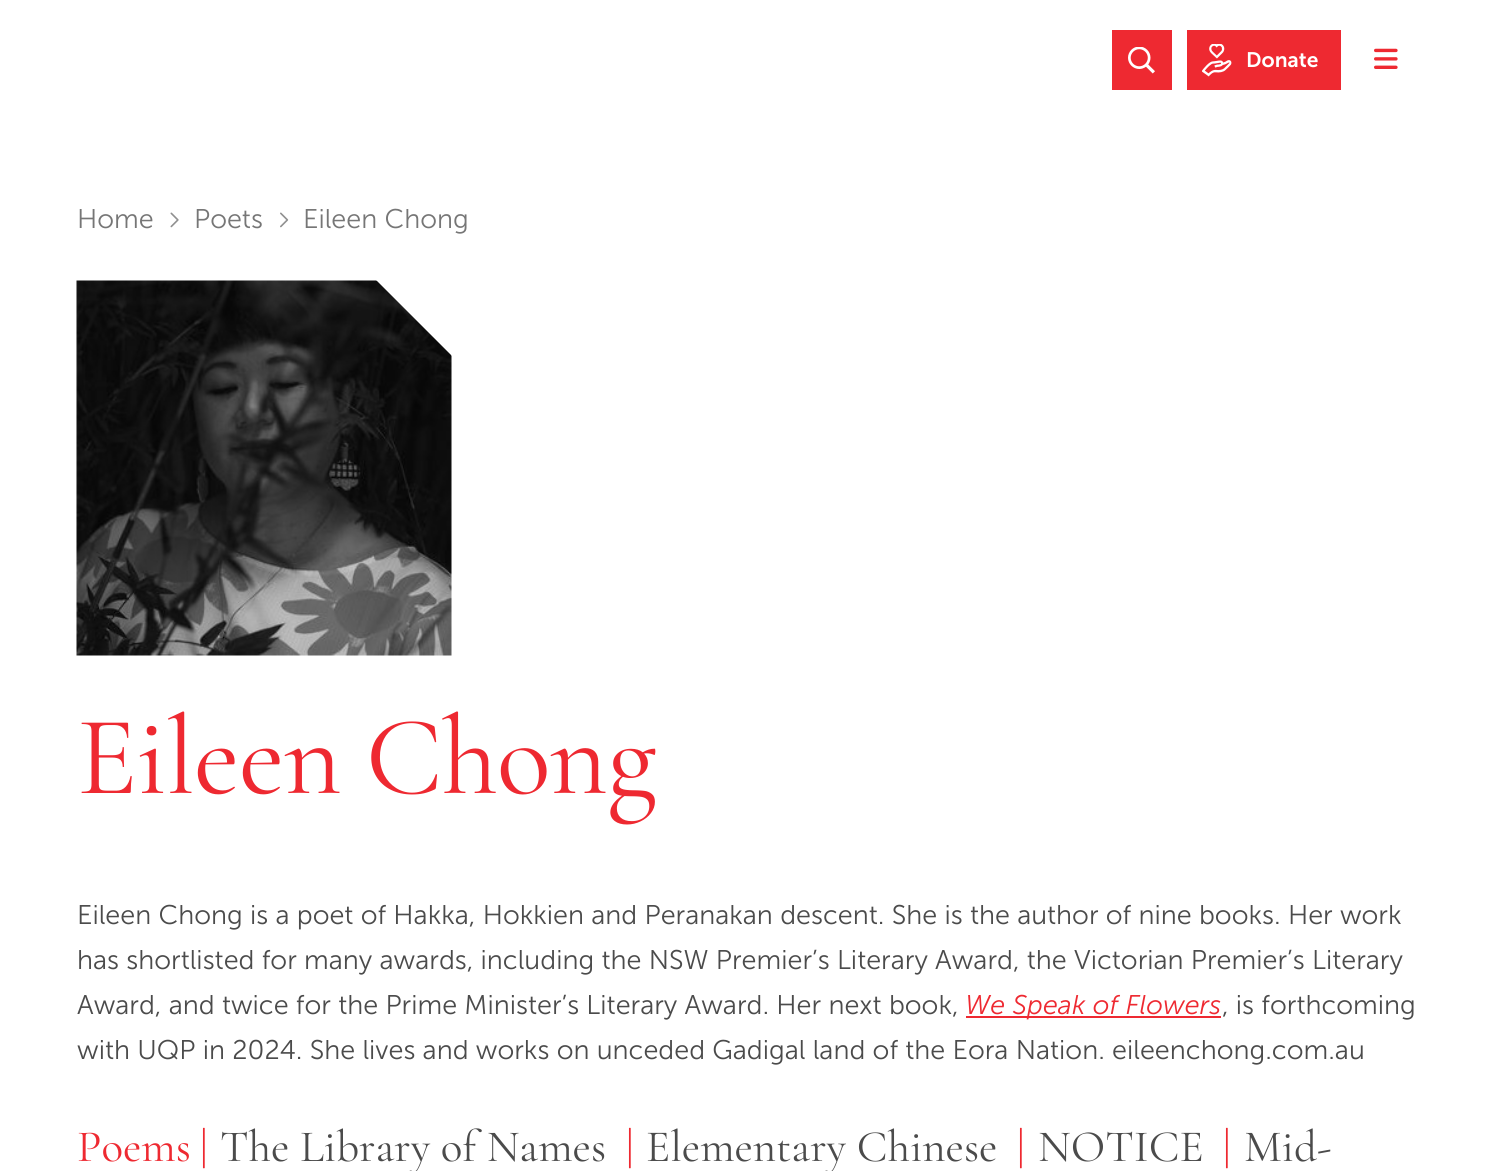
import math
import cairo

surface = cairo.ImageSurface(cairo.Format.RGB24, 1492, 1171)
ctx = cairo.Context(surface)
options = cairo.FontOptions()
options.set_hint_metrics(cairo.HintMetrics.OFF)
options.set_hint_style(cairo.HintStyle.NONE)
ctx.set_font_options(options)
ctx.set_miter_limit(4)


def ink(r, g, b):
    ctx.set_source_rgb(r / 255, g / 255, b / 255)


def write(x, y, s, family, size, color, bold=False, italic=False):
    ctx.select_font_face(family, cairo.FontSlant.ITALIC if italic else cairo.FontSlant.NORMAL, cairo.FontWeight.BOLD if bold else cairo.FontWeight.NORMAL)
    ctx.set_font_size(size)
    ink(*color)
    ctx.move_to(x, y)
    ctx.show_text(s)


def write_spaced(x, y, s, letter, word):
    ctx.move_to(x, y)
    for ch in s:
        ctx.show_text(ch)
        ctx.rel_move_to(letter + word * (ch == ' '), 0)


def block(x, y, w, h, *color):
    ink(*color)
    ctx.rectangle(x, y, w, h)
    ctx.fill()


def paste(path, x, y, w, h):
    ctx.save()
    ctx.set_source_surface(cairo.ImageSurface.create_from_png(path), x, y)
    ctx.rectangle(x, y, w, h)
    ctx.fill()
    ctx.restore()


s1 = dict(family="Museo Sans SemiBold", size=21, color=(255, 255, 255))
s2 = dict(family="Museo Sans Light", size=27, color=(118, 118, 118))
s3 = dict(family="Museo Sans Light", size=27, color=(75, 75, 75))
s4 = dict(family="Museo Sans Light", size=27, color=(238, 41, 49), italic=True)
s5 = dict(family="Cormorant Garamond", size=45, color=(238, 41, 49))
s6 = dict(family="Cormorant Garamond", size=45, color=(75, 75, 75))

ink(255, 255, 255)
ctx.paint()
block(1112, 30, 60, 60, 238, 41, 49)
paste("pic1.png", 1128, 47, 27, 27)
block(1187, 30, 154, 60, 238, 41, 49)
paste("pic2.png", 1202, 44, 30, 33)
write(1246, 67, "Donate", **s1)
paste("pic3.png", 1374, 48, 24, 21)
write(77, 228, "Home", **s2)
paste("pic4.png", 170, 212, 9, 16)
write(194, 228, "Poets", **s2)
paste("pic5.png", 280, 212, 9, 16)
write(303, 228, "Eileen Chong", **s2)
paste("pic6.png", 76, 280, 376, 376)
ink(255, 255, 255)
ctx.new_path()
ctx.move_to(372, 276)
ctx.line_to(456, 360)
ctx.line_to(456, 276)
ctx.close_path()
ctx.fill()
ctx.select_font_face("Cormorant Garamond")
ctx.set_font_size(112.5)
ink(238, 41, 49)
write_spaced(77, 793, "Eileen Chong", -1.1, 0)
write(77, 924, "Eileen Chong is a poet of Hakka, Hokkien and Peranakan descent. She is the author of nine books. Her work", **s3)
write(77, 969, "has shortlisted for many awards, including the NSW Premier’s Literary Award, the Victorian Premier’s Literary", **s3)
write(77, 1014, "Award, and twice for the Prime Minister’s Literary Award. Her next book,", **s3)
block(966, 1016, 255, 2, 238, 41, 49)
write(965, 1014, "We Speak of Flowers", **s4)
write(1222, 1014, ", is forthcoming", **s3)
write(77, 1059, "with UQP in 2024. She lives and works on unceded Gadigal land of the Eora Nation. eileenchong.com.au", **s3)
write(77, 1161, "Poems", **s5)
write(200, 1161, "|", **s5)
write(220, 1161, "The Library of Names", **s6)
write(626, 1161, "|", **s5)
write(646, 1161, "Elementary Chinese", **s6)
write(1017, 1161, "|", **s5)
write(1038, 1161, "NOTICE", **s6)
write(1223, 1161, "|", **s5)
write(1244, 1161, "Mid-", **s6)
surface.write_to_png("screenshot.png")
